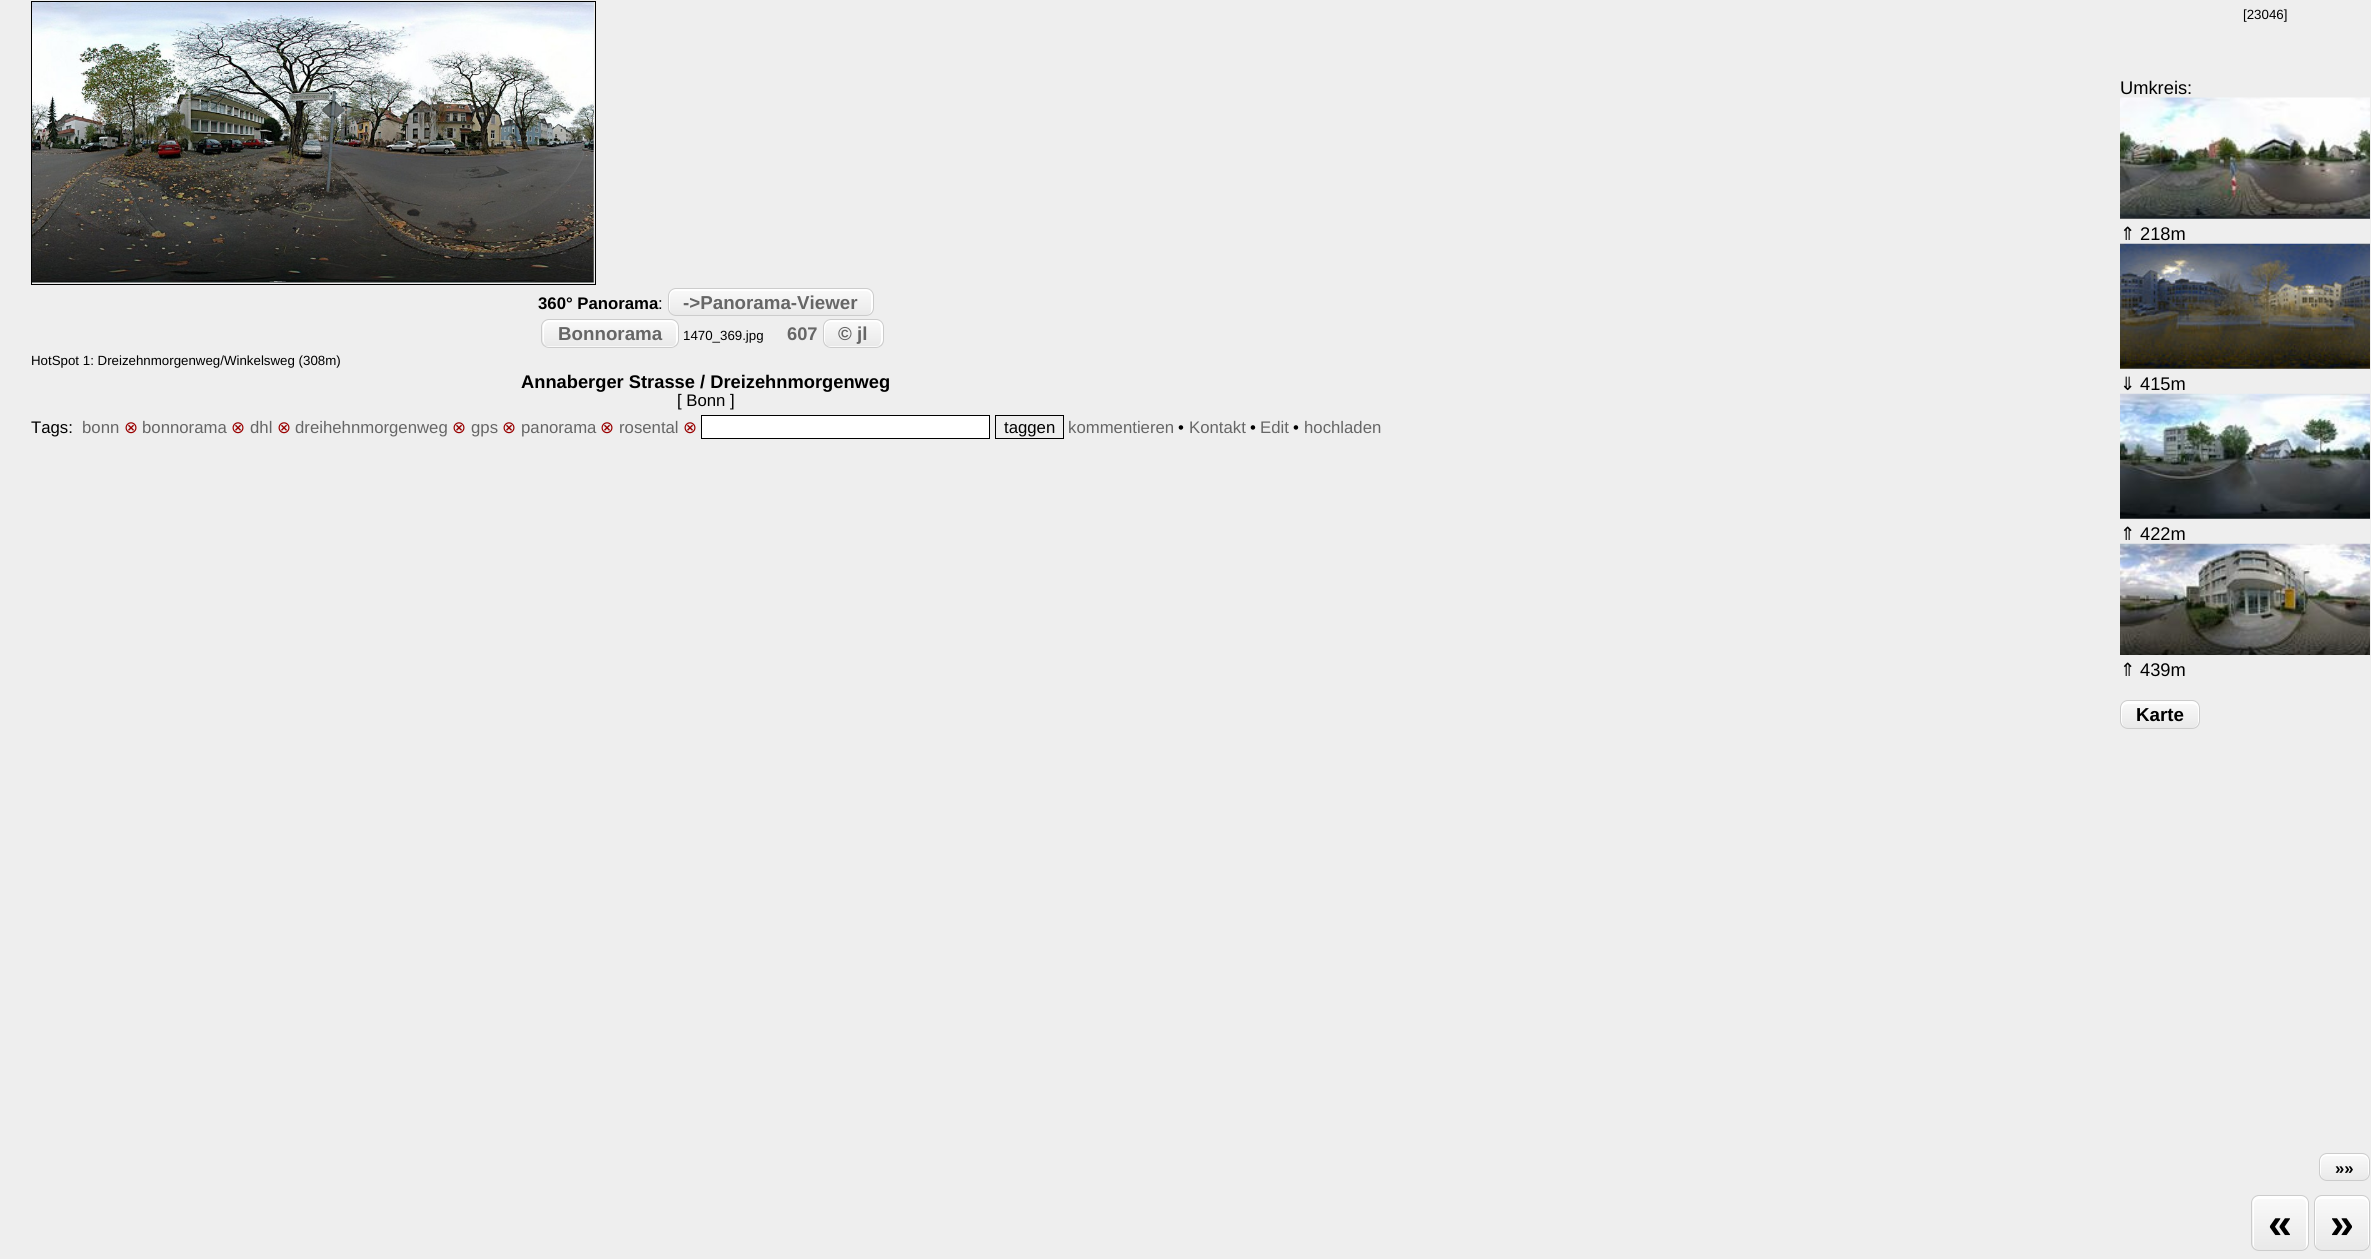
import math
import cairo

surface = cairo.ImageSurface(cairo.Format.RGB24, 2371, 1259)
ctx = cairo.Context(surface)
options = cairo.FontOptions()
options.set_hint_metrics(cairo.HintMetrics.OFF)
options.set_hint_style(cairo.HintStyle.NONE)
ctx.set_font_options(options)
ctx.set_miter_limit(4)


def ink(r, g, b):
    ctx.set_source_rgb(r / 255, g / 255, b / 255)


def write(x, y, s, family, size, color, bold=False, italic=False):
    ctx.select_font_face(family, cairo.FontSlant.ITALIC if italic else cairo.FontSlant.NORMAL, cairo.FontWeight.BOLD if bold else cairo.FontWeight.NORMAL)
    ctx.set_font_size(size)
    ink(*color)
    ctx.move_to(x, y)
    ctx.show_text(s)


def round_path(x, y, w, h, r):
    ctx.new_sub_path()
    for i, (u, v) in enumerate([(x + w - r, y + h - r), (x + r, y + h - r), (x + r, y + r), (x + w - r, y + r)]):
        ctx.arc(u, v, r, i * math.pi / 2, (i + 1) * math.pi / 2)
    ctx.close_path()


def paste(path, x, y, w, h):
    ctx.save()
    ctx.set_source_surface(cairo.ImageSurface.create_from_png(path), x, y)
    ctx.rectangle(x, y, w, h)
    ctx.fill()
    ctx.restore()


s1 = dict(family="Liberation Sans", size=13.3, color=(0, 0, 0))
s2 = dict(family="Liberation Sans", size=16.75, color=(0, 0, 0), bold=True)
s3 = dict(family="Liberation Sans", size=16.75, color=(0, 0, 0))
s4 = dict(family="Liberation Sans", size=18.75, color=(102, 102, 102), bold=True)
s5 = dict(family="Liberation Sans", size=18.3, color=(102, 102, 102), bold=True)
s6 = dict(family="Liberation Sans", size=18.3, color=(0, 0, 0), bold=True)
s7 = dict(family="Liberation Sans", size=16.75, color=(102, 102, 102))
s8 = dict(family="DejaVu Sans", size=16.75, color=(153, 0, 0))
s9 = dict(family="Liberation Sans", size=18.3, color=(0, 0, 0))
s10 = dict(family="DejaVu Sans", size=18.3, color=(0, 0, 0))
s11 = dict(family="Liberation Sans", size=18.75, color=(0, 0, 0), bold=True)
s12 = dict(family="Liberation Sans", size=43, color=(0, 0, 0), bold=True)

ink(238, 238, 238)
ctx.paint()
write(2243, 19, "[23046]", **s1)
paste("pic1.png", 32, 2, 562, 281)
ctx.rectangle(31.5, 1.5, 564, 283)
ctx.set_line_width(1)
ctx.stroke()
write(538, 309, "360° Panorama", **s2)
write(658, 309, ":", **s3)
ctx.save()
round_path(668, 288, 206, 28, 8)
ctx.clip()
gradient = cairo.LinearGradient(669, 289, 669, 315)
gradient.add_color_stop_rgba(0.05, 0.976, 0.976, 0.976, 1)
gradient.add_color_stop_rgba(1, 0.914, 0.914, 0.914, 1)
ctx.set_source(gradient)
ctx.rectangle(668, 289, 206, 26)
ctx.fill()
ctx.restore()
ink(255, 255, 255)
ctx.new_path()
ctx.move_to(675, 291)
ctx.line_to(866, 291)
ctx.curve_to(869, 291, 871, 293, 871, 296)
ctx.line_to(871, 310)
ctx.curve_to(871, 313, 869, 315, 866, 315)
ctx.curve_to(874, 315, 873, 308, 873, 302)
ctx.curve_to(873, 297, 874, 289, 867, 289)
ctx.line_to(675, 289)
ctx.curve_to(669, 289, 669, 295, 669, 300)
ctx.curve_to(669, 304, 667, 313, 673, 315)
ctx.curve_to(669, 313, 670, 307, 670, 303)
ctx.curve_to(670, 299, 669, 291, 675, 291)
ctx.close_path()
ctx.fill()
round_path(668.5, 288.5, 205, 27, 7.5)
ink(204, 204, 204)
ctx.stroke()
write(683, 309, "->Panorama-Viewer", **s4)
ctx.save()
round_path(541, 319, 138, 29, 8)
ctx.clip()
gradient = cairo.LinearGradient(543, 320, 543, 346)
gradient.add_color_stop_rgba(0.05, 0.976, 0.976, 0.976, 1)
gradient.add_color_stop_rgba(1, 0.914, 0.914, 0.914, 1)
ctx.set_source(gradient)
ctx.rectangle(541, 320, 138, 26)
ctx.fill()
gradient = cairo.LinearGradient(543, 346, 543, 373)
gradient.add_color_stop_rgba(0.05, 0.976, 0.976, 0.976, 1)
gradient.add_color_stop_rgba(1, 0.914, 0.914, 0.914, 1)
ctx.set_source(gradient)
ctx.rectangle(541, 346, 138, 2)
ctx.fill()
ctx.restore()
ink(255, 255, 255)
ctx.new_path()
ctx.move_to(549, 322)
ctx.line_to(671, 322)
ctx.curve_to(674, 322, 676, 325, 676, 328)
ctx.line_to(676, 341)
ctx.curve_to(676, 344, 674, 346, 671, 346)
ctx.line_to(672, 346)
ctx.curve_to(675, 346, 678, 343, 678, 340)
ctx.line_to(678, 326)
ctx.curve_to(678, 323, 675, 320, 672, 320)
ctx.line_to(549, 320)
ctx.curve_to(546, 320, 543, 323, 543, 326)
ctx.line_to(543, 340)
ctx.curve_to(543, 343, 545, 345, 547, 346)
ctx.curve_to(543, 344, 544, 338, 544, 334)
ctx.curve_to(544, 331, 543, 322, 549, 322)
ctx.close_path()
ctx.fill()
round_path(541.5, 319.5, 137, 28, 7.5)
ink(204, 204, 204)
ctx.stroke()
write(558, 340, "Bonnorama", **s4)
write(683, 340, "1470_369.jpg", **s1)
write(787, 340, "607", **s5)
ctx.save()
round_path(823, 319, 61, 29, 8)
ctx.clip()
gradient = cairo.LinearGradient(824, 320, 824, 346)
gradient.add_color_stop_rgba(0.05, 0.976, 0.976, 0.976, 1)
gradient.add_color_stop_rgba(1, 0.914, 0.914, 0.914, 1)
ctx.set_source(gradient)
ctx.rectangle(823, 320, 61, 26)
ctx.fill()
gradient = cairo.LinearGradient(824, 346, 824, 373)
gradient.add_color_stop_rgba(0.05, 0.976, 0.976, 0.976, 1)
gradient.add_color_stop_rgba(1, 0.914, 0.914, 0.914, 1)
ctx.set_source(gradient)
ctx.rectangle(823, 346, 61, 2)
ctx.fill()
ctx.restore()
ink(255, 255, 255)
ctx.new_path()
ctx.move_to(830, 322)
ctx.line_to(861, 322)
ctx.curve_to(878, 322, 881, 318, 881, 334)
ctx.curve_to(881, 339, 882, 346, 876, 346)
ctx.line_to(877, 346)
ctx.curve_to(880, 346, 883, 343, 883, 340)
ctx.line_to(883, 326)
ctx.curve_to(883, 323, 880, 320, 877, 320)
ctx.line_to(830, 320)
ctx.curve_to(827, 320, 824, 323, 824, 326)
ctx.line_to(824, 340)
ctx.curve_to(824, 343, 826, 345, 828, 346)
ctx.curve_to(824, 344, 825, 338, 825, 334)
ctx.curve_to(825, 331, 824, 322, 830, 322)
ctx.close_path()
ctx.fill()
round_path(823.5, 319.5, 60, 28, 7.5)
ink(204, 204, 204)
ctx.stroke()
write(838, 340, "© jl", **s4)
write(31, 365, "HotSpot 1: Dreizehnmorgenweg/Winkelsweg (308m)", **s1)
write(521, 388, "Annaberger Strasse / Dreizehnmorgenweg", **s6)
write(677, 406, "[ Bonn ]", **s3)
write(31, 433, "Tags:", **s3)
write(82, 433, "bonn", **s7)
write(124, 433, "⊗", **s8)
write(142, 433, "bonnorama", **s7)
write(231, 433, "⊗", **s8)
write(250, 433, "dhl", **s7)
write(277, 433, "⊗", **s8)
write(295, 433, "dreihehnmorgenweg", **s7)
write(452, 433, "⊗", **s8)
write(471, 433, "gps", **s7)
write(502, 433, "⊗", **s8)
write(521, 433, "panorama", **s7)
write(600, 433, "⊗", **s8)
write(619, 433, "rosental", **s7)
write(683, 433, "⊗", **s8)
ink(255, 255, 255)
ctx.rectangle(701.5, 415.5, 288, 23)
ctx.fill_preserve()
ink(0, 0, 0)
ctx.stroke()
ctx.rectangle(995.5, 415.5, 68, 23)
ctx.stroke()
write(1004, 433, "taggen", **s3)
write(1068, 433, "kommentieren", **s7)
write(1178, 433, "•", **s3)
write(1189, 433, "Kontakt", **s7)
write(1250, 433, "•", **s3)
write(1260, 433, "Edit", **s7)
write(1293, 433, "•", **s3)
write(1304, 433, "hochladen", **s7)
write(2120, 94, "Umkreis:", **s9)
paste("pic2.png", 2120, 97, 250, 122)
write(2120, 240, "⇑", **s10)
write(2140, 240, "218m", **s9)
paste("pic3.png", 2120, 243, 250, 126)
write(2120, 390, "⇓", **s10)
write(2140, 390, "415m", **s9)
paste("pic4.png", 2120, 393, 250, 126)
write(2120, 540, "⇑", **s10)
write(2140, 540, "422m", **s9)
paste("pic5.png", 2120, 543, 250, 112)
write(2120, 676, "⇑", **s10)
write(2140, 676, "439m", **s9)
ctx.save()
round_path(2120, 700, 80, 29, 8)
ctx.clip()
gradient = cairo.LinearGradient(2121, 701, 2121, 728)
gradient.add_color_stop_rgba(0.05, 0.976, 0.976, 0.976, 1)
gradient.add_color_stop_rgba(1, 0.914, 0.914, 0.914, 1)
ctx.set_source(gradient)
ctx.rectangle(2120, 701, 80, 27)
ctx.fill()
ctx.restore()
ink(255, 255, 255)
ctx.new_path()
ctx.move_to(2128, 704)
ctx.line_to(2192, 704)
ctx.curve_to(2195, 704, 2198, 706, 2198, 709)
ctx.line_to(2198, 722)
ctx.curve_to(2198, 725, 2195, 728, 2192, 728)
ctx.curve_to(2200, 728, 2199, 721, 2199, 714)
ctx.curve_to(2199, 710, 2200, 701, 2193, 701)
ctx.line_to(2127, 701)
ctx.curve_to(2120, 701, 2121, 710, 2121, 714)
ctx.curve_to(2121, 721, 2120, 728, 2128, 728)
ctx.curve_to(2121, 728, 2122, 720, 2122, 716)
ctx.curve_to(2122, 711, 2121, 704, 2128, 704)
ctx.close_path()
ctx.fill()
round_path(2120.5, 700.5, 79, 28, 7.5)
ink(204, 204, 204)
ctx.stroke()
write(2136, 721, "Karte", **s11)
ctx.save()
round_path(2319, 1153, 51, 28, 8)
ctx.clip()
gradient = cairo.LinearGradient(2320, 1154, 2320, 1180)
gradient.add_color_stop_rgba(0.05, 0.976, 0.976, 0.976, 1)
gradient.add_color_stop_rgba(1, 0.914, 0.914, 0.914, 1)
ctx.set_source(gradient)
ctx.rectangle(2319, 1154, 51, 26)
ctx.fill()
ctx.restore()
ink(255, 255, 255)
ctx.new_path()
ctx.move_to(2326, 1156)
ctx.line_to(2362, 1156)
ctx.curve_to(2365, 1156, 2368, 1158, 2368, 1161)
ctx.line_to(2368, 1175)
ctx.curve_to(2368, 1178, 2365, 1180, 2362, 1180)
ctx.curve_to(2369, 1180, 2369, 1175, 2369, 1169)
ctx.curve_to(2369, 1156, 2371, 1154, 2357, 1154)
ctx.line_to(2338, 1154)
ctx.curve_to(2334, 1154, 2324, 1152, 2321, 1157)
ctx.curve_to(2319, 1159, 2320, 1164, 2320, 1167)
ctx.curve_to(2320, 1171, 2319, 1178, 2324, 1180)
ctx.curve_to(2320, 1178, 2321, 1172, 2321, 1168)
ctx.curve_to(2321, 1164, 2320, 1156, 2326, 1156)
ctx.close_path()
ctx.fill()
round_path(2319.5, 1153.5, 50, 27, 7.5)
ink(204, 204, 204)
ctx.stroke()
write(2335, 1174, "»»", **s2)
ctx.save()
round_path(2251, 1195, 58, 56, 8)
ctx.clip()
gradient = cairo.LinearGradient(2253, 1196, 2253, 1250)
gradient.add_color_stop_rgba(0.05, 0.976, 0.976, 0.976, 1)
gradient.add_color_stop_rgba(1, 0.914, 0.914, 0.914, 1)
ctx.set_source(gradient)
ctx.rectangle(2251, 1196, 58, 54)
ctx.fill()
ctx.restore()
ink(255, 255, 255)
ctx.new_path()
ctx.move_to(2259, 1199)
ctx.line_to(2301, 1199)
ctx.curve_to(2304, 1199, 2306, 1201, 2306, 1204)
ctx.line_to(2306, 1245)
ctx.curve_to(2306, 1248, 2304, 1250, 2301, 1250)
ctx.line_to(2302, 1250)
ctx.curve_to(2305, 1250, 2308, 1247, 2308, 1244)
ctx.line_to(2308, 1202)
ctx.curve_to(2308, 1199, 2305, 1196, 2302, 1196)
ctx.line_to(2259, 1196)
ctx.curve_to(2256, 1196, 2253, 1199, 2253, 1202)
ctx.line_to(2253, 1244)
ctx.curve_to(2253, 1247, 2255, 1249, 2257, 1250)
ctx.curve_to(2255, 1249, 2254, 1247, 2254, 1245)
ctx.line_to(2254, 1204)
ctx.curve_to(2254, 1201, 2256, 1199, 2259, 1199)
ctx.close_path()
ctx.fill()
round_path(2251.5, 1195.5, 57, 55, 7.5)
ink(204, 204, 204)
ctx.stroke()
write(2268, 1238, "«", **s12)
ctx.save()
round_path(2314, 1195, 56, 56, 8)
ctx.clip()
gradient = cairo.LinearGradient(2315, 1196, 2315, 1250)
gradient.add_color_stop_rgba(0.05, 0.976, 0.976, 0.976, 1)
gradient.add_color_stop_rgba(1, 0.914, 0.914, 0.914, 1)
ctx.set_source(gradient)
ctx.rectangle(2314, 1196, 56, 54)
ctx.fill()
ctx.restore()
ink(255, 255, 255)
ctx.new_path()
ctx.move_to(2321, 1199)
ctx.line_to(2362, 1199)
ctx.curve_to(2365, 1199, 2368, 1201, 2368, 1204)
ctx.line_to(2368, 1245)
ctx.curve_to(2368, 1248, 2365, 1250, 2362, 1250)
ctx.line_to(2363, 1250)
ctx.curve_to(2366, 1250, 2369, 1247, 2369, 1244)
ctx.line_to(2369, 1202)
ctx.curve_to(2369, 1199, 2366, 1196, 2363, 1196)
ctx.line_to(2321, 1196)
ctx.curve_to(2318, 1196, 2315, 1199, 2315, 1202)
ctx.line_to(2315, 1244)
ctx.curve_to(2315, 1247, 2317, 1249, 2319, 1250)
ctx.curve_to(2317, 1249, 2316, 1247, 2316, 1245)
ctx.line_to(2316, 1204)
ctx.curve_to(2316, 1201, 2318, 1199, 2321, 1199)
ctx.close_path()
ctx.fill()
round_path(2314.5, 1195.5, 55, 55, 7.5)
ink(204, 204, 204)
ctx.stroke()
write(2330, 1238, "»", **s12)
surface.write_to_png("screenshot.png")
